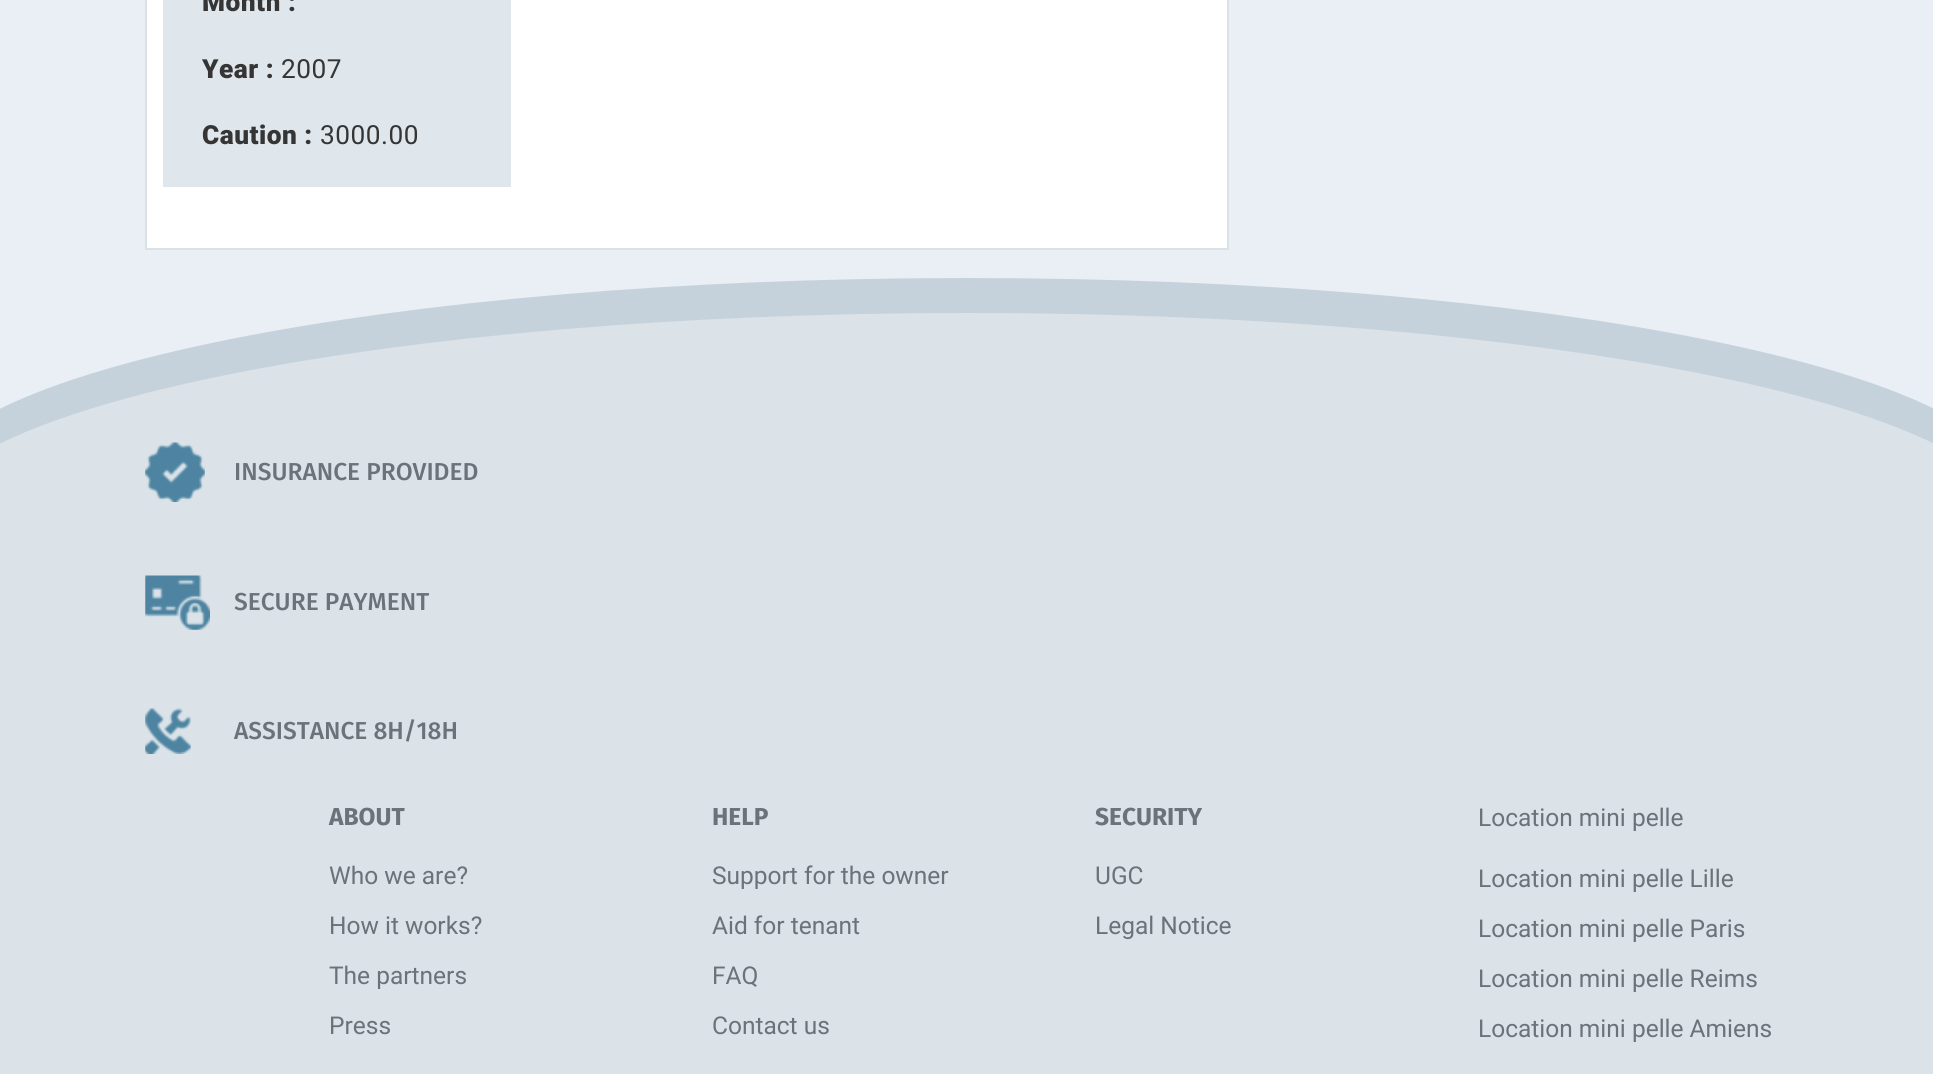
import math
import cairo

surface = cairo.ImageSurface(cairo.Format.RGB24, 1933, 1074)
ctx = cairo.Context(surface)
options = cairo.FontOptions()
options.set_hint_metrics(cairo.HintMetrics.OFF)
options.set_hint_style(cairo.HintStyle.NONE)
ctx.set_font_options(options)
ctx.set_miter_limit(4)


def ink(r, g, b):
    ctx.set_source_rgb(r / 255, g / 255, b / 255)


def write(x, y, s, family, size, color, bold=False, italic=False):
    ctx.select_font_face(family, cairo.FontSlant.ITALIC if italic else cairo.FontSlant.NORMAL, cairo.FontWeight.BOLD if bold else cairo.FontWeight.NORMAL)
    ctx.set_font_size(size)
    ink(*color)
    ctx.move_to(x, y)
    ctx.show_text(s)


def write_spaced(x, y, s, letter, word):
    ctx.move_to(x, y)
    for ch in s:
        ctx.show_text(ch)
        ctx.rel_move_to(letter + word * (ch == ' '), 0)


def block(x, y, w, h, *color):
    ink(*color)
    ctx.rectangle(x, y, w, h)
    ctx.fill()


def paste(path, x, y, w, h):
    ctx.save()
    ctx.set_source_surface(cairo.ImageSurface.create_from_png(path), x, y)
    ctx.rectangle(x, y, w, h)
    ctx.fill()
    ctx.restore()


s1 = dict(family="Fira Sans Medium", size=24.5, color=(107, 114, 121))
s2 = dict(family="Fira Sans", size=24.5, color=(107, 114, 121), bold=True)
s3 = dict(family="Roboto", size=24.5, color=(107, 114, 121))

ink(233, 239, 244)
ctx.paint()
ink(255, 255, 255)
ctx.rectangle(146, -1, 1082, 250)
ctx.fill_preserve()
ink(218, 226, 231)
ctx.stroke()
block(163, 0, 348, 187, 223, 231, 236)
ctx.select_font_face("Roboto Black")
ctx.set_font_size(26.25)
ink(53, 53, 53)
write_spaced(202, 11, "Month :", 0.5, 0)
write_spaced(202, 78, "Year :", 0.5, 0)
ctx.select_font_face("Roboto")
write_spaced(281, 78, "2007", 0.5, 0)
ctx.select_font_face("Roboto Black")
write_spaced(202, 144, "Caution :", 0.5, 0)
ctx.select_font_face("Roboto")
write_spaced(320, 144, "3000.00", 0.5, 0)
block(0, 707, 1933, 367, 219, 227, 233)
ink(198, 210, 219)
ctx.new_path()
ctx.move_to(967, 278)
ctx.curve_to(1543, 278, 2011, 372, 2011, 488)
ctx.line_to(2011, 593)
ctx.curve_to(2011, 709, 1543, 803, 967, 803)
ctx.curve_to(390, 803, -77, 709, -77, 593)
ctx.line_to(-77, 488)
ctx.curve_to(-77, 372, 390, 278, 967, 278)
ctx.close_path()
ctx.fill()
ink(219, 227, 233)
ctx.new_path()
ctx.move_to(967, 313)
ctx.curve_to(1543, 313, 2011, 407, 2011, 523)
ctx.line_to(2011, 628)
ctx.curve_to(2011, 744, 1543, 838, 967, 838)
ctx.curve_to(390, 838, -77, 744, -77, 628)
ctx.line_to(-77, 523)
ctx.curve_to(-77, 407, 390, 313, 967, 313)
ctx.close_path()
ctx.fill()
paste("pic1.png", 145, 442, 60, 60)
write(234, 480, "INSURANCE PROVIDED", **s1)
paste("pic2.png", 145, 575, 65, 55)
write(234, 610, "SECURE PAYMENT", **s1)
paste("pic3.png", 145, 708, 46, 46)
write(234, 739, "ASSISTANCE 8H/18H", **s1)
write(329, 825, "ABOUT", **s2)
write(329, 884, "Who we are?", **s3)
write(329, 934, "How it works?", **s3)
write(329, 984, "The partners", **s3)
write(329, 1034, "Press", **s3)
write(712, 825, "HELP", **s2)
write(712, 884, "Support for the owner", **s3)
write(712, 934, "Aid for tenant", **s3)
write(712, 984, "FAQ", **s3)
write(712, 1034, "Contact us", **s3)
write(1095, 825, "SECURITY", **s2)
write(1095, 884, "UGC", **s3)
write(1095, 934, "Legal Notice", **s3)
write(1478, 826, "Location mini pelle", **s3)
write(1478, 887, "Location mini pelle Lille", **s3)
write(1478, 937, "Location mini pelle Paris", **s3)
write(1478, 987, "Location mini pelle Reims", **s3)
write(1478, 1037, "Location mini pelle Amiens", **s3)
surface.write_to_png("screenshot.png")
